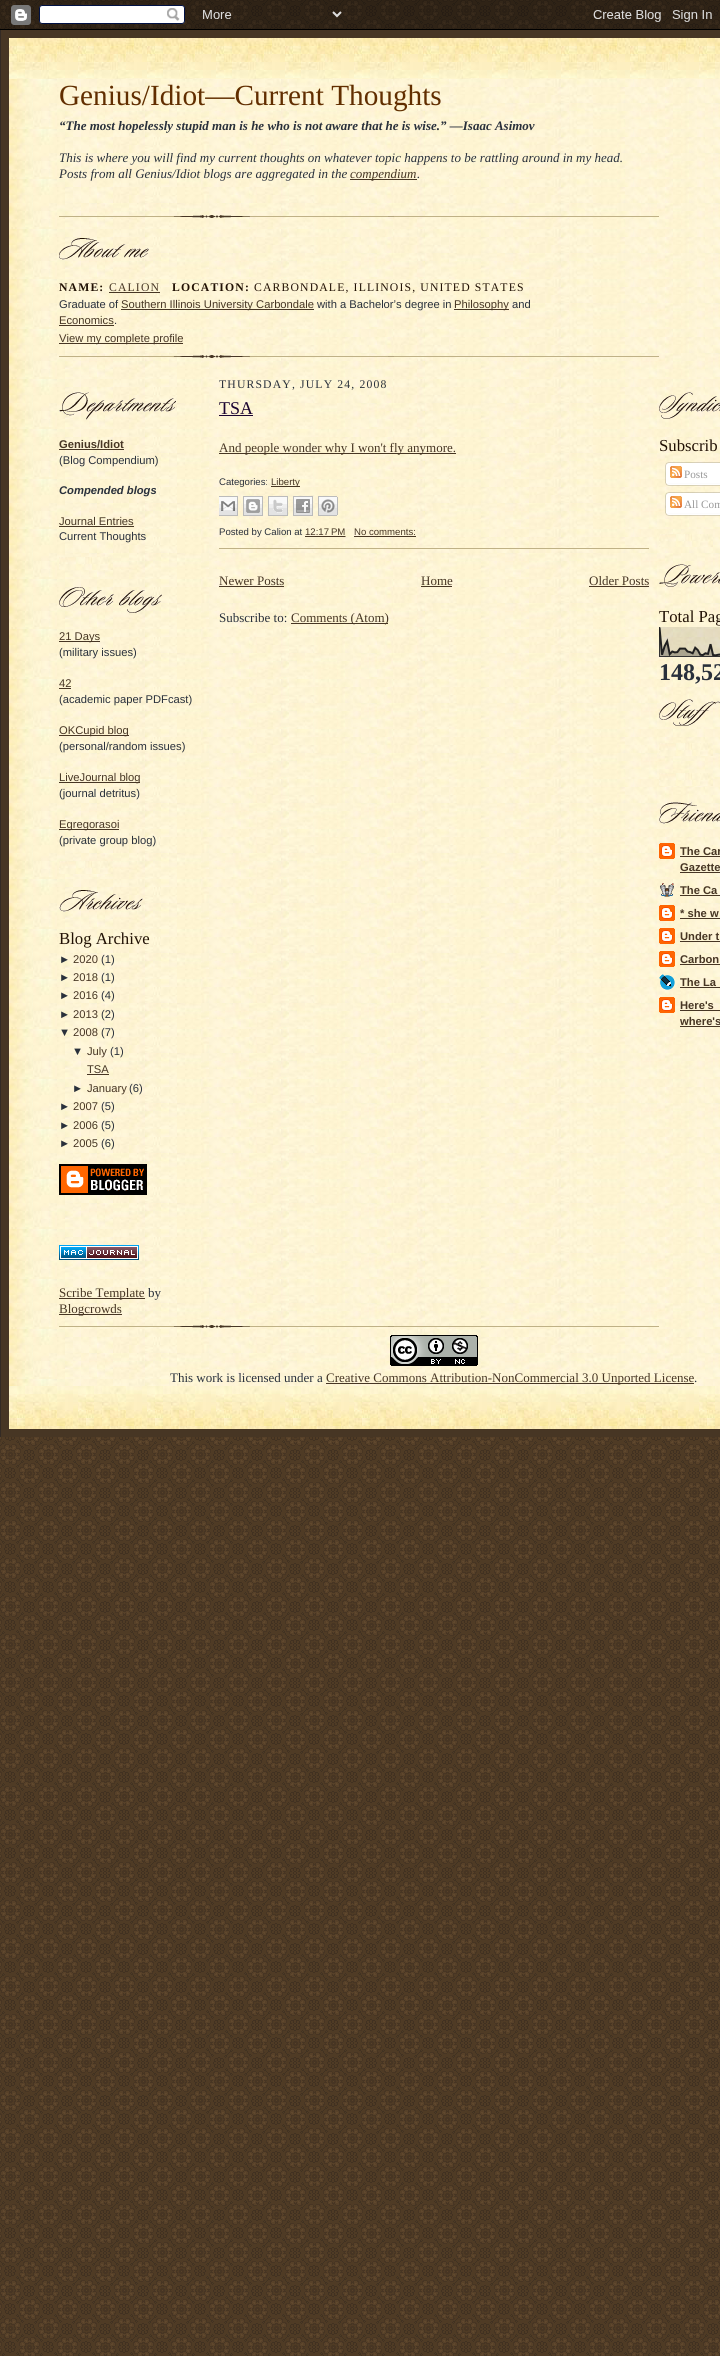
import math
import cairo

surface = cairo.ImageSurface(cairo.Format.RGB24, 720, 2356)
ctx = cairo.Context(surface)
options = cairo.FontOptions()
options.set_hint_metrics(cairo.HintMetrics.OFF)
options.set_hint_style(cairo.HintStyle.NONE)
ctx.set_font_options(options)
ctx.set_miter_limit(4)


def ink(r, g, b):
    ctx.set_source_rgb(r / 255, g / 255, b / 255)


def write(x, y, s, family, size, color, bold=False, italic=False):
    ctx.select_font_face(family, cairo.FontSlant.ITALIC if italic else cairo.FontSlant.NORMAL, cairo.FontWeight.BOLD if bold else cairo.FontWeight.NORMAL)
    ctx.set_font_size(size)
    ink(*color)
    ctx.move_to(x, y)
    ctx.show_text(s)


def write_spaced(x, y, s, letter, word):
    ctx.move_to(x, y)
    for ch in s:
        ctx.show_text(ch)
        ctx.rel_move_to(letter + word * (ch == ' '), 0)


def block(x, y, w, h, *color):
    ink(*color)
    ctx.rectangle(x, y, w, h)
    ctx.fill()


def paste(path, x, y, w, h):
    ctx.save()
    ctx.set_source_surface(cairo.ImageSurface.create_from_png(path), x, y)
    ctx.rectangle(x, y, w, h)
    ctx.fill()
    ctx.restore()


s1 = dict(family="Liberation Serif", size=29.25, color=(97, 46, 0))
s2 = dict(family="Liberation Serif", size=13, color=(41, 48, 59), bold=True, italic=True)
s3 = dict(family="Liberation Serif", size=13, color=(41, 48, 59), italic=True)
s4 = dict(family="Liberation Serif", size=13, color=(71, 54, 36), italic=True)
s5 = dict(family="Liberation Sans", size=11.2, color=(41, 48, 59))
s6 = dict(family="Liberation Sans", size=11.2, color=(71, 54, 36))
s7 = dict(family="Liberation Sans", size=11.2, color=(71, 54, 36), bold=True)
s8 = dict(family="Liberation Sans", size=11.2, color=(41, 48, 59), bold=True, italic=True)
s9 = dict(family="Liberation Serif", size=16.75, color=(33, 17, 4))
s10 = dict(family="Liberation Serif", size=13, color=(71, 54, 36))
s11 = dict(family="Liberation Serif", size=13, color=(41, 48, 59))
s12 = dict(family="Liberation Serif", size=18, color=(27, 4, 49))
s13 = dict(family="Liberation Sans", size=9.6, color=(41, 48, 59))
s14 = dict(family="Liberation Sans", size=9.6, color=(71, 54, 36))
s15 = dict(family="Liberation Serif", size=11.2, color=(153, 153, 153))
s16 = dict(family="Liberation Serif", size=24, color=(41, 48, 59), bold=True)

ink(255, 255, 255)
ctx.paint()
paste("pic1.png", 0, 0, 720, 2356)
paste("pic2.png", 0, 0, 720, 30)
block(1, 30, 719, 1407, 71, 54, 36)
block(0, 30, 1, 1407, 51, 42, 36)
paste("pic3.png", 9, 38, 711, 41)
paste("pic4.png", 9, 79, 711, 1307)
paste("pic5.png", 59, 355, 600, 3)
write(59, 105, "Genius/Idiot—Current Thoughts", **s1)
write(59, 130, "“The most hopelessly stupid man is he who is not aware that he is wise.” —Isaac Asimov", **s2)
write(59, 162, "This is where you will find my current thoughts on whatever topic happens to be rattling around in my head.", **s3)
write(59, 178, "Posts from all Genius/Idiot blogs are aggregated in the", **s3)
block(350, 179, 67, 1, 71, 54, 36)
write(350, 178, "compendium", **s4)
write(417, 178, ".", **s3)
paste("pic6.png", 59, 215, 600, 3)
paste("pic7.png", 59, 238, 90, 22)
ctx.select_font_face("Liberation Serif", cairo.FontSlant.NORMAL, cairo.FontWeight.BOLD)
ctx.set_font_size(11.7)
ink(33, 17, 4)
write_spaced(59, 291, "NAME:", 1.15, 0)
ctx.select_font_face("Liberation Serif")
ink(71, 54, 36)
write_spaced(109, 291, "CALION", 1.15, 0)
block(109, 292, 51, 1, 71, 54, 36)
ctx.select_font_face("Liberation Serif", cairo.FontSlant.NORMAL, cairo.FontWeight.BOLD)
ink(33, 17, 4)
write_spaced(172, 291, "LOCATION:", 1.15, 0)
ctx.select_font_face("Liberation Serif")
write_spaced(254, 291, "CARBONDALE, ILLINOIS, UNITED STATES", 1.15, 0)
write(59, 308, "Graduate of", **s5)
block(121, 309, 193, 1, 71, 54, 36)
write(121, 308, "Southern Illinois University Carbondale", **s6)
write(317, 308, "with a Bachelor’s degree in", **s5)
block(454, 309, 55, 1, 71, 54, 36)
write(454, 308, "Philosophy", **s6)
write(512, 308, "and", **s5)
write(59, 324, "Economics", **s6)
block(59, 325, 55, 1, 71, 54, 36)
write(114, 324, ".", **s5)
block(59, 343, 124, 1, 71, 54, 36)
write(59, 342, "View my complete profile", **s6)
paste("pic8.png", 59, 392, 117, 28)
write(59, 448, "Genius/Idiot", **s7)
block(59, 449, 65, 1, 71, 54, 36)
write(59, 464, "(Blog Compendium)", **s5)
write(59, 494, "Compended blogs", **s8)
write(59, 525, "Journal Entries", **s6)
block(59, 526, 75, 1, 71, 54, 36)
write(59, 540, "Current Thoughts", **s5)
paste("pic9.png", 59, 557, 54, 13)
paste("pic10.png", 59, 587, 103, 26)
block(59, 641, 41, 1, 71, 54, 36)
write(59, 640, "21 Days", **s6)
write(59, 656, "(military issues)", **s5)
write(59, 687, "42", **s6)
block(59, 688, 12, 1, 71, 54, 36)
write(59, 703, "(academic paper PDFcast)", **s5)
block(59, 735, 70, 1, 71, 54, 36)
write(59, 734, "OKCupid blog", **s6)
write(59, 750, "(personal/random issues)", **s5)
block(59, 782, 81, 1, 71, 54, 36)
write(59, 781, "LiveJournal blog", **s6)
write(59, 797, "(journal detritus)", **s5)
block(59, 829, 60, 1, 71, 54, 36)
write(59, 828, "Egregorasoi", **s6)
write(59, 844, "(private group blog)", **s5)
paste("pic9.png", 59, 861, 54, 13)
paste("pic11.png", 59, 890, 84, 22)
write(59, 944, "Blog Archive", **s9)
write(59, 963, "►", **s5)
write(73, 963, "2020", **s6)
write(101, 963, "(1)", **s5)
write(59, 981, "►", **s5)
write(73, 981, "2018", **s6)
write(101, 981, "(1)", **s5)
write(59, 999, "►", **s5)
write(73, 999, "2016", **s6)
write(101, 999, "(4)", **s5)
write(59, 1018, "►", **s5)
write(73, 1018, "2013", **s6)
write(101, 1018, "(2)", **s5)
write(59, 1036, "▼", **s5)
write(73, 1036, "2008", **s6)
write(101, 1036, "(7)", **s5)
write(72, 1055, "▼", **s5)
write(87, 1055, "July", **s6)
write(110, 1055, "(1)", **s5)
write(87, 1073, "TSA", **s6)
block(87, 1074, 22, 1, 71, 54, 36)
write(72, 1092, "►", **s5)
write(87, 1092, "January", **s6)
write(129, 1092, "(6)", **s5)
write(59, 1110, "►", **s5)
write(73, 1110, "2007", **s6)
write(101, 1110, "(5)", **s5)
write(59, 1129, "►", **s5)
write(73, 1129, "2006", **s6)
write(101, 1129, "(5)", **s5)
write(59, 1147, "►", **s5)
write(73, 1147, "2005", **s6)
write(101, 1147, "(6)", **s5)
paste("pic12.png", 59, 1164, 88, 31)
paste("pic13.png", 59, 1245, 80, 15)
block(59, 1298, 86, 1, 71, 54, 36)
write(59, 1297, "Scribe Template", **s10)
write(148, 1297, "by", **s11)
block(59, 1314, 63, 1, 71, 54, 36)
write(59, 1313, "Blogcrowds", **s10)
ctx.set_font_size(11.7)
ink(41, 48, 59)
write_spaced(219, 388, "THURSDAY, JULY 24, 2008", 1.15, 0)
write(219, 414, "TSA", **s12)
block(219, 415, 34, 1, 27, 4, 49)
block(219, 453, 237, 1, 71, 54, 36)
write(219, 452, "And people wonder why I won't fly anymore.", **s10)
block(219, 548, 430, 1, 191, 177, 134)
write(219, 485, "Categories:", **s13)
block(271, 486, 29, 1, 71, 54, 36)
write(271, 485, "Liberty", **s14)
paste("pic14.png", 219, 496, 19, 20)
paste("pic15.png", 243, 496, 20, 20)
paste("pic16.png", 268, 496, 20, 20)
paste("pic17.png", 293, 496, 20, 20)
paste("pic18.png", 318, 496, 20, 20)
write(219, 535, "Posted by Calion at", **s13)
write(305, 535, "12:17 PM", **s14)
ctx.new_path()
ctx.move_to(305, 536.5)
ctx.line_to(345.5, 536.5)
ctx.set_line_width(1)
ctx.set_dash([1, 1])
ctx.stroke()
block(305, 536, 40, 1, 71, 54, 36)
write(354, 535, "No comments:", **s14)
block(354, 536, 62, 1, 71, 54, 36)
write(219, 585, "Newer Posts", **s10)
block(219, 586, 65, 1, 71, 54, 36)
write(421, 585, "Home", **s10)
block(421, 586, 31, 1, 71, 54, 36)
write(589, 585, "Older Posts", **s10)
block(589, 586, 60, 1, 71, 54, 36)
write(219, 622, "Subscribe to:", **s11)
block(291, 623, 97, 1, 71, 54, 36)
write(291, 622, "Comments (Atom)", **s10)
paste("pic19.png", 659, 392, 61, 27)
write(659, 451, "Subscrib", **s9)
paste("pic20.png", 665, 462, 55, 21)
paste("pic21.png", 670, 466, 12, 12)
write(684, 478, "Posts", **s15)
paste("pic22.png", 665, 483, 55, 3)
paste("pic23.png", 665, 492, 55, 21)
paste("pic21.png", 670, 496, 12, 12)
write(684, 508, "All Com", **s15)
paste("pic24.png", 665, 513, 55, 3)
paste("pic9.png", 659, 534, 54, 13)
paste("pic25.png", 659, 564, 61, 23)
write(659, 622, "Total Pag", **s9)
paste("pic26.png", 659, 627, 61, 30)
write(659, 680, "148,52", **s16)
paste("pic27.png", 659, 699, 61, 27)
paste("pic9.png", 659, 743, 54, 13)
paste("pic9.png", 659, 773, 54, 13)
paste("pic28.png", 659, 802, 61, 22)
paste("pic29.png", 659, 843, 16, 16)
write(680, 855, "The Car", **s7)
block(680, 856, 40, 1, 71, 54, 36)
write(680, 871, "Gazette", **s7)
block(680, 872, 40, 1, 71, 54, 36)
paste("pic30.png", 660, 883, 14, 14)
write(680, 894, "The Ca", **s7)
block(680, 895, 40, 1, 71, 54, 36)
paste("pic31.png", 659, 905, 16, 16)
write(680, 917, "* she w", **s7)
block(680, 918, 40, 1, 71, 54, 36)
paste("pic32.png", 659, 928, 16, 16)
write(680, 940, "Under t", **s7)
block(680, 941, 40, 1, 71, 54, 36)
paste("pic33.png", 659, 951, 16, 16)
write(680, 963, "Carbon", **s7)
block(680, 964, 40, 1, 71, 54, 36)
paste("pic34.png", 659, 974, 16, 16)
write(680, 986, "The La", **s7)
block(680, 987, 40, 1, 71, 54, 36)
paste("pic35.png", 659, 997, 16, 16)
write(680, 1009, "Here's", **s7)
block(680, 1010, 40, 1, 71, 54, 36)
write(680, 1025, "where's", **s7)
block(680, 1026, 40, 1, 71, 54, 36)
paste("pic36.png", 59, 1325, 600, 3)
paste("pic37.png", 390, 1335, 88, 31)
write(170, 1382, "This work is licensed under a", **s11)
block(326, 1383, 368, 1, 71, 54, 36)
write(326, 1382, "Creative Commons Attribution-NonCommercial 3.0 Unported License", **s10)
write(694, 1382, ".", **s11)
paste("pic38.png", 9, 1386, 711, 43)
surface.write_to_png("screenshot.png")
